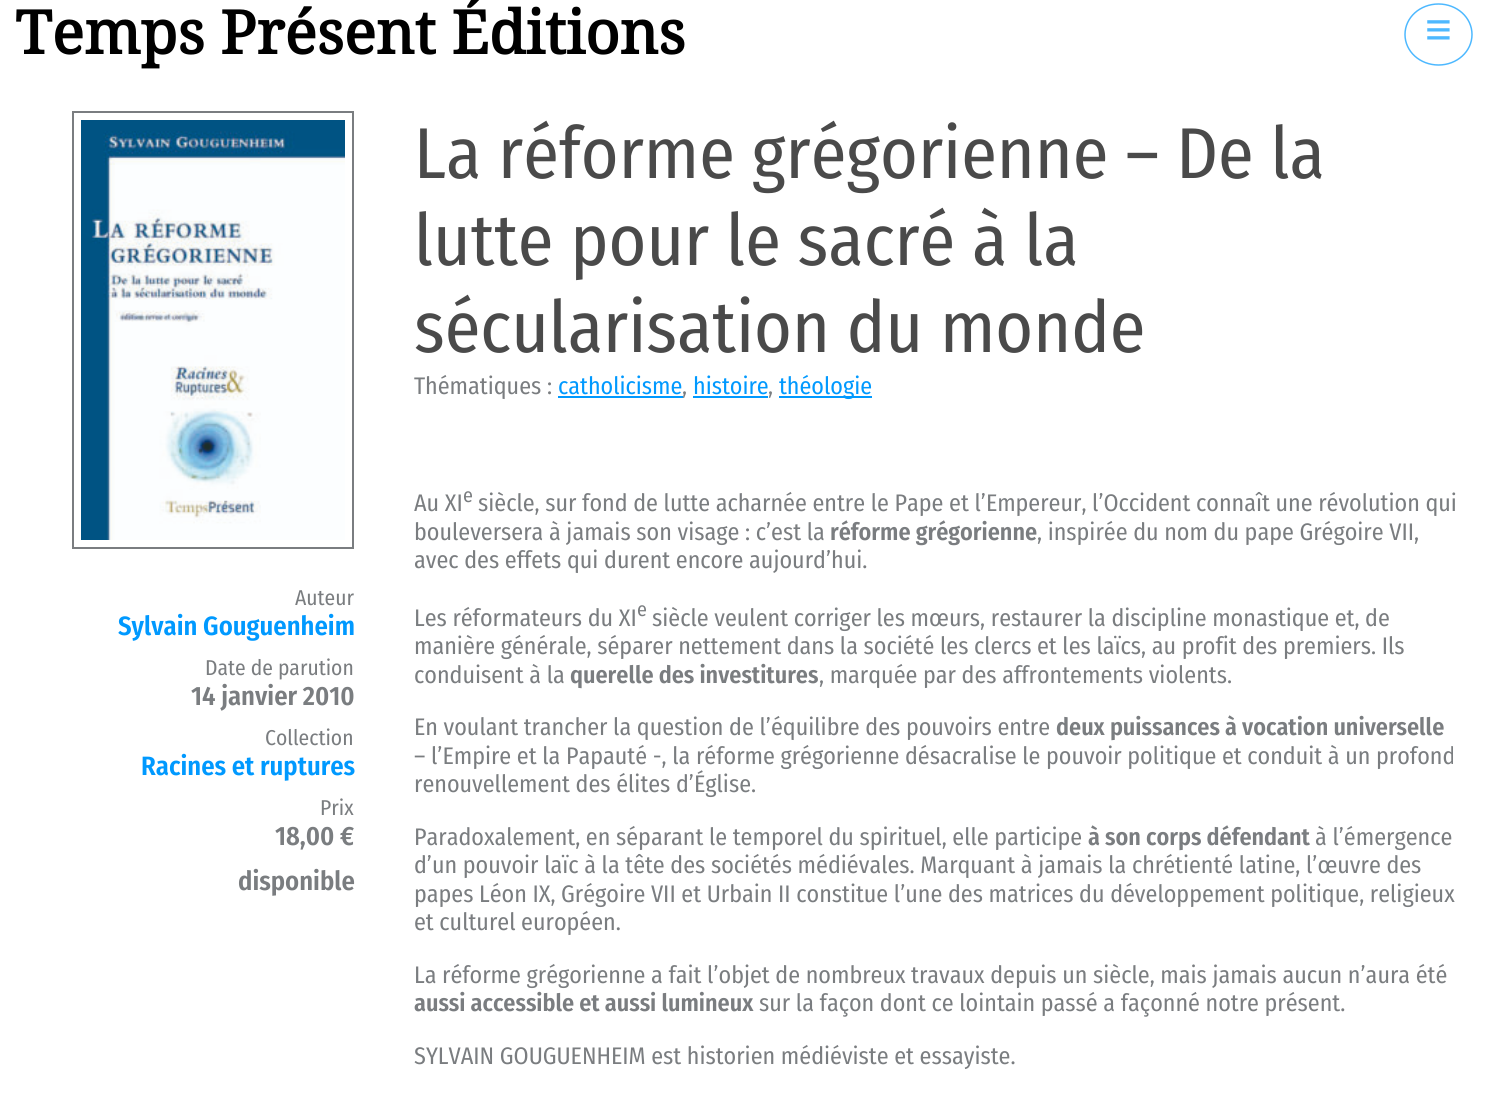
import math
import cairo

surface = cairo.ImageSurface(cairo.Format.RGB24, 1488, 1095)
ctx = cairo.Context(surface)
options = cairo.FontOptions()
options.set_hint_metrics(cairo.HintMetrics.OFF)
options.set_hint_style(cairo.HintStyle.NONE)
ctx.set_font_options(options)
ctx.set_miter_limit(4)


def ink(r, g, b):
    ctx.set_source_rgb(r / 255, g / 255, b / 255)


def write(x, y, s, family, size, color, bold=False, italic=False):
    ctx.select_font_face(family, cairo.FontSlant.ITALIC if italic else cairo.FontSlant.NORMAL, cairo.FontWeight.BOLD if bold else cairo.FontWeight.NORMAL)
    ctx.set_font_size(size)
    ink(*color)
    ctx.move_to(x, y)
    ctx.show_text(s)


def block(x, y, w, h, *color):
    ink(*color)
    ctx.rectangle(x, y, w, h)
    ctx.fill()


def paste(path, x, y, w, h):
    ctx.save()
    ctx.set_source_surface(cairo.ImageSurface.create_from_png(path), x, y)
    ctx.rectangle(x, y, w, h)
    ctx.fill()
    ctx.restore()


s1 = dict(family="Droid Serif", size=60, color=(0, 0, 0), bold=True)
s2 = dict(family="Liberation Sans", size=46, color=(77, 184, 255))
s3 = dict(family="Fira Sans Condensed", size=21.5, color=(122, 125, 128))
s4 = dict(family="Fira Sans Condensed SemiBold", size=26.5, color=(0, 153, 255))
s5 = dict(family="Fira Sans Condensed SemiBold", size=26.5, color=(122, 125, 128))
s6 = dict(family="Fira Sans Condensed", size=72, color=(74, 74, 74))
s7 = dict(family="Fira Sans Condensed", size=24, color=(122, 125, 128))
s8 = dict(family="Fira Sans Condensed", size=24, color=(0, 153, 255))
s9 = dict(family="Fira Sans Condensed", size=20, color=(122, 125, 128))
s10 = dict(family="Fira Sans Condensed SemiBold", size=24, color=(122, 125, 128))

ink(255, 255, 255)
ctx.paint()
write(15, 54, "Temps Présent Éditions", **s1)
ctx.new_path()
ctx.move_to(1438.5, 4)
ctx.curve_to(1457, 4, 1472, 17.5, 1472, 34.5)
ctx.curve_to(1472, 51.5, 1457, 65, 1438.5, 65)
ctx.curve_to(1420, 65, 1405, 51.5, 1405, 34.5)
ctx.curve_to(1405, 17.5, 1420, 4, 1438.5, 4)
ctx.close_path()
ink(77, 184, 255)
ctx.set_line_width(1.5)
ctx.stroke()
write(1425, 45, "≡", **s2)
ctx.rectangle(73, 112, 280, 436)
ink(122, 125, 128)
ctx.set_line_width(2)
ctx.stroke()
paste("pic1.png", 81, 120, 264, 420)
write(295, 605, "Auteur", **s3)
write(118, 635, "Sylvain Gouguenheim", **s4)
write(205, 675, "Date de parution", **s3)
write(191, 705, "14 janvier 2010", **s5)
write(265, 745, "Collection", **s3)
write(141, 775, "Racines et ruptures", **s4)
write(320, 815, "Prix", **s3)
write(275, 845, "18,00 €", **s5)
write(238, 890, "disponible", **s5)
write(414, 178, "La réforme grégorienne – De la", **s6)
write(414, 265, "lutte pour le sacré à la", **s6)
write(414, 352, "sécularisation du monde", **s6)
write(414, 394, "Thématiques :", **s7)
write(558, 394, "catholicisme", **s8)
block(558, 396, 125, 2, 0, 153, 255)
write(682, 394, ",", **s7)
write(693, 394, "histoire", **s8)
block(693, 396, 75, 2, 0, 153, 255)
write(768, 394, ",", **s7)
block(779, 396, 93, 2, 0, 153, 255)
write(779, 394, "théologie", **s8)
write(414, 511, "Au XI", **s7)
write(463, 502, "e", **s9)
write(478, 511, "siècle, sur fond de lutte acharnée entre le Pape et l’Empereur, l’Occident connaît une révolution qui", **s7)
write(414, 540, "bouleversera à jamais son visage : c’est la", **s7)
write(830, 540, "réforme grégorienne", **s10)
write(1037, 540, ", inspirée du nom du pape Grégoire VII,", **s7)
write(414, 568, "avec des effets qui durent encore aujourd’hui.", **s7)
write(414, 626, "Les réformateurs du XI", **s7)
write(637, 616, "e", **s9)
write(652, 626, "siècle veulent corriger les mœurs, restaurer la discipline monastique et, de", **s7)
write(414, 654, "manière générale, séparer nettement dans la société les clercs et les laïcs, au profit des premiers. Ils", **s7)
write(414, 683, "conduisent à la", **s7)
write(570, 683, "querelle des investitures", **s10)
write(819, 683, ", marquée par des affrontements violents.", **s7)
write(414, 735, "En voulant trancher la question de l’équilibre des pouvoirs entre", **s7)
write(1056, 735, "deux puissances à vocation universelle", **s10)
write(414, 764, "– l’Empire et la Papauté -, la réforme grégorienne désacralise le pouvoir politique et conduit à un profond", **s7)
write(414, 792, "renouvellement des élites d’Église.", **s7)
write(414, 845, "Paradoxalement, en séparant le temporel du spirituel, elle participe", **s7)
write(1088, 845, "à son corps défendant", **s10)
write(1315, 845, "à l’émergence", **s7)
write(414, 873, "d’un pouvoir laïc à la tête des sociétés médiévales. Marquant à jamais la chrétienté latine, l’œuvre des", **s7)
write(414, 902, "papes Léon IX, Grégoire VII et Urbain II constitue l’une des matrices du développement politique, religieux", **s7)
write(414, 930, "et culturel européen.", **s7)
write(414, 983, "La réforme grégorienne a fait l’objet de nombreux travaux depuis un siècle, mais jamais aucun n’aura été", **s7)
write(414, 1011, "aussi accessible et aussi lumineux", **s10)
write(759, 1011, "sur la façon dont ce lointain passé a façonné notre présent.", **s7)
write(414, 1064, "SYLVAIN GOUGUENHEIM est historien médiéviste et essayiste.", **s7)
surface.write_to_png("screenshot.png")
